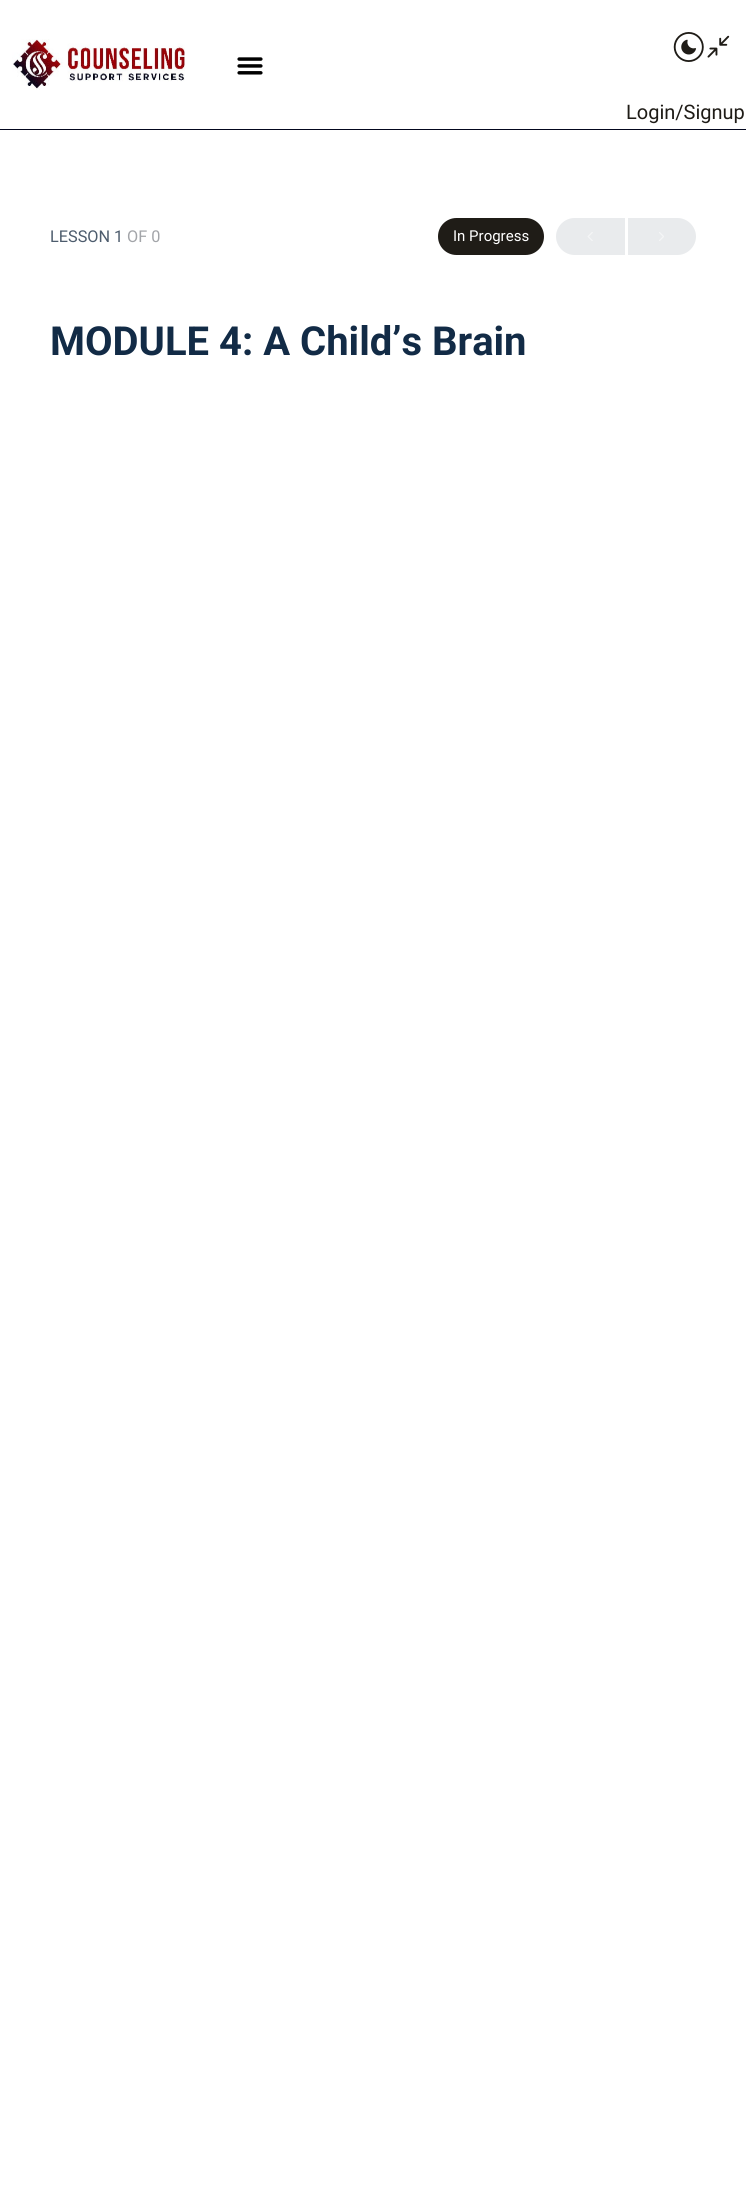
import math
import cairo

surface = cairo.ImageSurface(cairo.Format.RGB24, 746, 2189)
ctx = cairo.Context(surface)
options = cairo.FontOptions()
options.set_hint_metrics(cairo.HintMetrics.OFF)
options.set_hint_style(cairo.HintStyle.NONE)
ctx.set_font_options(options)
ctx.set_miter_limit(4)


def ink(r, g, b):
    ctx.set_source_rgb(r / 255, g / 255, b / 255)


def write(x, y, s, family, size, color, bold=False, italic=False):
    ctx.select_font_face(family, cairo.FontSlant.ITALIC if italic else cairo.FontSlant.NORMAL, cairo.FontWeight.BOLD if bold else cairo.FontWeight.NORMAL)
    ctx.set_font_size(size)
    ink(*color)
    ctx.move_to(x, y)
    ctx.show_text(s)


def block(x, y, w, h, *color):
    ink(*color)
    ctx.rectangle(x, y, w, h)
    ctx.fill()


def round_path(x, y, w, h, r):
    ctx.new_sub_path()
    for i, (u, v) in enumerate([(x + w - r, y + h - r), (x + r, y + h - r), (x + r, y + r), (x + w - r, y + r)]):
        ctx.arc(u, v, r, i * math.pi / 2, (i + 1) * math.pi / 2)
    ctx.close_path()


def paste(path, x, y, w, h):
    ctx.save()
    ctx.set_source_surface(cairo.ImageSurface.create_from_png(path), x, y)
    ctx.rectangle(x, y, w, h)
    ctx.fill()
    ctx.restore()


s1 = dict(family="Roboto", size=20, color=(31, 28, 23))
s2 = dict(family="Roboto", size=16.25, color=(77, 92, 109))
s3 = dict(family="Roboto", size=16.25, color=(163, 165, 169))
s4 = dict(family="Roboto", size=15, color=(255, 255, 255))
s5 = dict(family="Roboto", size=40, color=(18, 43, 70), bold=True)

ink(255, 255, 255)
ctx.paint()
block(0, 129, 746, 1, 3, 7, 30)
paste("pic1.png", 12, 39, 173, 51)
paste("pic2.png", 237, 57, 26, 18)
paste("pic3.png", 673, 32, 31, 30)
paste("pic4.png", 707, 35, 23, 23)
write(626, 119, "Login/Signup", **s1)
write(50, 242, "LESSON 1", **s2)
write(127, 242, "OF 0", **s3)
ink(31, 28, 23)
round_path(438, 218, 106, 37, 18.5)
ctx.fill()
write(453, 241, "In Progress", **s4)
ink(233, 235, 237)
ctx.new_path()
ctx.move_to(574.5, 218)
ctx.line_to(625, 218)
ctx.line_to(625, 255)
ctx.line_to(574.5, 255)
ctx.curve_to(564.5, 255, 556, 246.5, 556, 236.5)
ctx.curve_to(556, 226.5, 564.5, 218, 574.5, 218)
ctx.close_path()
ctx.fill()
paste("pic5.png", 587, 232, 6, 9)
ctx.new_path()
ctx.move_to(628, 218)
ctx.line_to(677.5, 218)
ctx.curve_to(687.5, 218, 696, 226.5, 696, 236.5)
ctx.curve_to(696, 246.5, 687.5, 255, 677.5, 255)
ctx.line_to(628, 255)
ctx.close_path()
ctx.fill()
paste("pic6.png", 659, 232, 5, 9)
write(50, 355, "MODULE 4: A Child’s Brain", **s5)
surface.write_to_png("screenshot.png")
